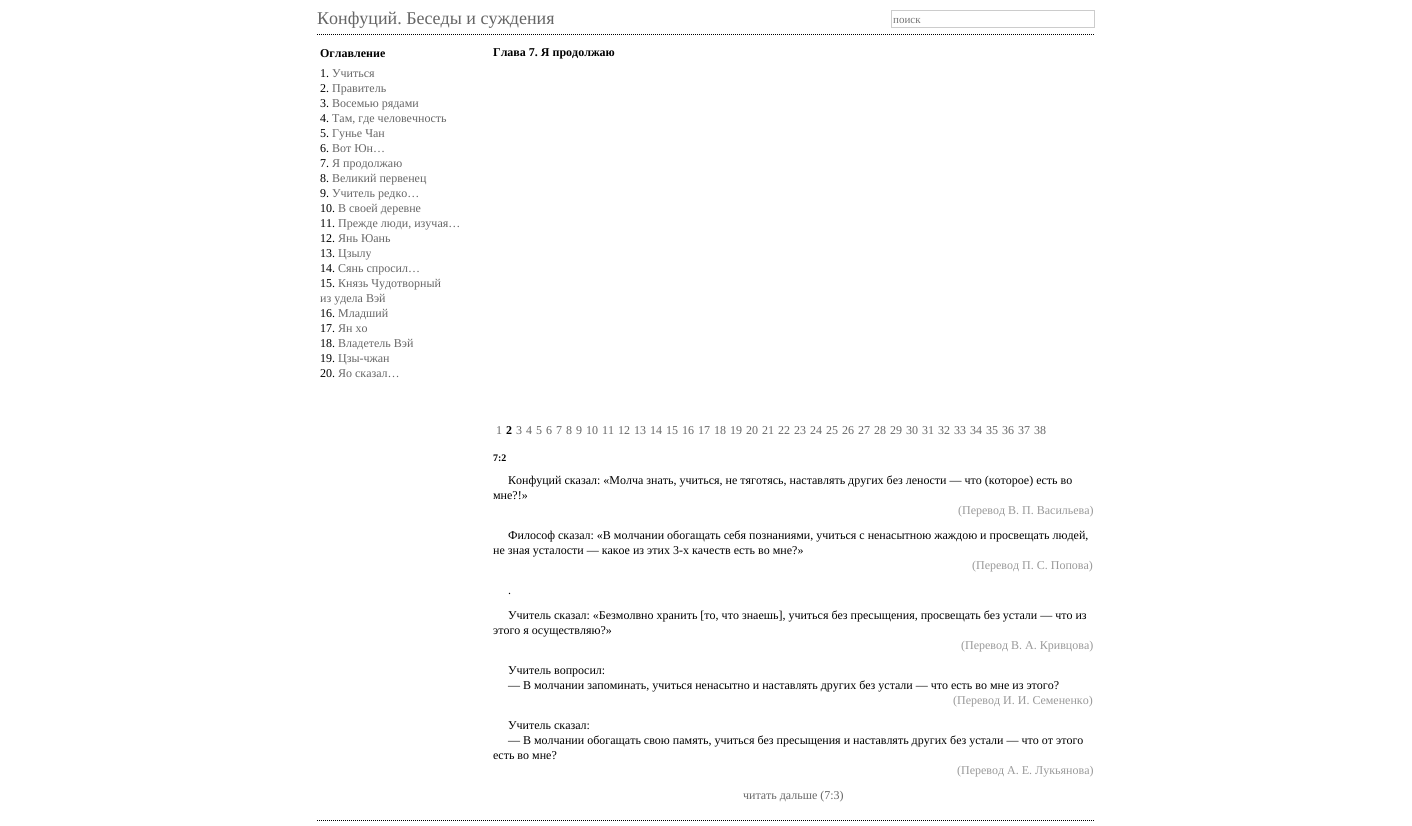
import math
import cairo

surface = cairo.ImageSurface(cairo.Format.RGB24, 1412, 826)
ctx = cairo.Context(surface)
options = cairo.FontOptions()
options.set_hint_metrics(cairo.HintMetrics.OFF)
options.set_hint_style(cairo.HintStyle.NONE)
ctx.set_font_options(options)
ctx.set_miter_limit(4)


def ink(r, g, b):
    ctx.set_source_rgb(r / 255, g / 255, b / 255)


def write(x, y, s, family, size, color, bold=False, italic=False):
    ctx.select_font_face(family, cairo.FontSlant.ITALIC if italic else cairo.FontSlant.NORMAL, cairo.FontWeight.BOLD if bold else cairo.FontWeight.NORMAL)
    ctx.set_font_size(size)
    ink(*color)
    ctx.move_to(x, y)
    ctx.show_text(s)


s1 = dict(family="Liberation Serif", size=18, color=(102, 102, 102))
s2 = dict(family="Liberation Serif", size=11, color=(117, 117, 117))
s3 = dict(family="Liberation Serif", size=12, color=(0, 0, 0), bold=True)
s4 = dict(family="Liberation Serif", size=12, color=(0, 0, 0))
s5 = dict(family="Liberation Serif", size=12, color=(102, 102, 102))
s6 = dict(family="Liberation Serif", size=10, color=(0, 0, 0), bold=True)
s7 = dict(family="Liberation Serif", size=12, color=(153, 153, 153))

ink(255, 255, 255)
ctx.paint()
ctx.new_path()
ctx.move_to(317, 34.5)
ctx.line_to(1095, 34.5)
ink(0, 0, 0)
ctx.set_line_width(1)
ctx.set_dash([1, 1])
ctx.stroke()
write(317, 24, "Конфуций. Беседы и суждения", **s1)
ctx.rectangle(891.5, 10.5, 203, 17)
ink(204, 204, 204)
ctx.set_dash([])
ctx.stroke()
write(893, 23, "поиск", **s2)
write(320, 57, "Оглавление", **s3)
write(320, 77, "1.", **s4)
write(332, 77, "Учиться", **s5)
write(320, 92, "2.", **s4)
write(332, 92, "Правитель", **s5)
write(320, 107, "3.", **s4)
write(332, 107, "Восемью рядами", **s5)
write(320, 122, "4.", **s4)
write(332, 122, "Там, где человечность", **s5)
write(320, 137, "5.", **s4)
write(332, 137, "Гунье Чан", **s5)
write(320, 152, "6.", **s4)
write(332, 152, "Вот Юн…", **s5)
write(320, 167, "7.", **s4)
write(332, 167, "Я продолжаю", **s5)
write(320, 182, "8.", **s4)
write(332, 182, "Великий первенец", **s5)
write(320, 197, "9.", **s4)
write(332, 197, "Учитель редко…", **s5)
write(320, 212, "10.", **s4)
write(338, 212, "В своей деревне", **s5)
write(320, 227, "11.", **s4)
write(338, 227, "Прежде люди, изучая…", **s5)
write(320, 242, "12.", **s4)
write(338, 242, "Янь Юань", **s5)
write(320, 257, "13.", **s4)
write(338, 257, "Цзылу", **s5)
write(320, 272, "14.", **s4)
write(338, 272, "Сянь спросил…", **s5)
write(320, 287, "15.", **s4)
write(338, 287, "Князь Чудотворный", **s5)
write(320, 302, "из удела Вэй", **s5)
write(320, 317, "16.", **s4)
write(338, 317, "Младший", **s5)
write(320, 332, "17.", **s4)
write(338, 332, "Ян хо", **s5)
write(320, 347, "18.", **s4)
write(338, 347, "Владетель Вэй", **s5)
write(320, 362, "19.", **s4)
write(338, 362, "Цзы-чжан", **s5)
write(320, 377, "20.", **s4)
write(338, 377, "Яо сказал…", **s5)
write(493, 56, "Глава 7. Я продолжаю", **s3)
write(496, 434, "1", **s5)
write(506, 434, "2", **s3)
write(516, 434, "3", **s5)
write(526, 434, "4", **s5)
write(536, 434, "5", **s5)
write(546, 434, "6", **s5)
write(556, 434, "7", **s5)
write(566, 434, "8", **s5)
write(576, 434, "9", **s5)
write(586, 434, "10", **s5)
write(602, 434, "11", **s5)
write(618, 434, "12", **s5)
write(634, 434, "13", **s5)
write(650, 434, "14", **s5)
write(666, 434, "15", **s5)
write(682, 434, "16", **s5)
write(698, 434, "17", **s5)
write(714, 434, "18", **s5)
write(730, 434, "19", **s5)
write(746, 434, "20", **s5)
write(762, 434, "21", **s5)
write(778, 434, "22", **s5)
write(794, 434, "23", **s5)
write(810, 434, "24", **s5)
write(826, 434, "25", **s5)
write(842, 434, "26", **s5)
write(858, 434, "27", **s5)
write(874, 434, "28", **s5)
write(890, 434, "29", **s5)
write(906, 434, "30", **s5)
write(922, 434, "31", **s5)
write(938, 434, "32", **s5)
write(954, 434, "33", **s5)
write(970, 434, "34", **s5)
write(986, 434, "35", **s5)
write(1002, 434, "36", **s5)
write(1018, 434, "37", **s5)
write(1034, 434, "38", **s5)
write(493, 461, "7:2", **s6)
write(508, 484, "Конфуций сказал: «Молча знать, учиться, не тяготясь, наставлять других без лености — что (которое) есть во", **s4)
write(493, 499, "мне?!»", **s4)
write(958, 514, "(Перевод В. П. Васильева)", **s7)
write(508, 539, "Философ сказал: «В молчании обогащать себя познаниями, учиться с ненасытною жаждою и просвещать людей,", **s4)
write(493, 554, "не зная усталости — какое из этих 3-х качеств есть во мне?»", **s4)
write(972, 569, "(Перевод П. С. Попова)", **s7)
write(508, 594, ".", **s4)
write(508, 619, "Учитель сказал: «Безмолвно хранить [то, что знаешь], учиться без пресыщения, просвещать без устали — что из", **s4)
write(493, 634, "этого я осуществляю?»", **s4)
write(961, 649, "(Перевод В. А. Кривцова)", **s7)
write(508, 674, "Учитель вопросил:", **s4)
write(508, 689, "— В молчании запоминать, учиться ненасытно и наставлять других без устали — что есть во мне из этого?", **s4)
write(953, 704, "(Перевод И. И. Семененко)", **s7)
write(508, 729, "Учитель сказал:", **s4)
write(508, 744, "— В молчании обогащать свою память, учиться без пресыщения и наставлять других без устали — что от этого", **s4)
write(493, 759, "есть во мне?", **s4)
write(957, 774, "(Перевод А. Е. Лукьянова)", **s7)
write(743, 799, "читать дальше (7:3)", **s5)
ctx.new_path()
ctx.move_to(317, 820.5)
ctx.line_to(1095, 820.5)
ink(0, 0, 0)
ctx.set_dash([1, 1])
ctx.stroke()
surface.write_to_png("screenshot.png")
